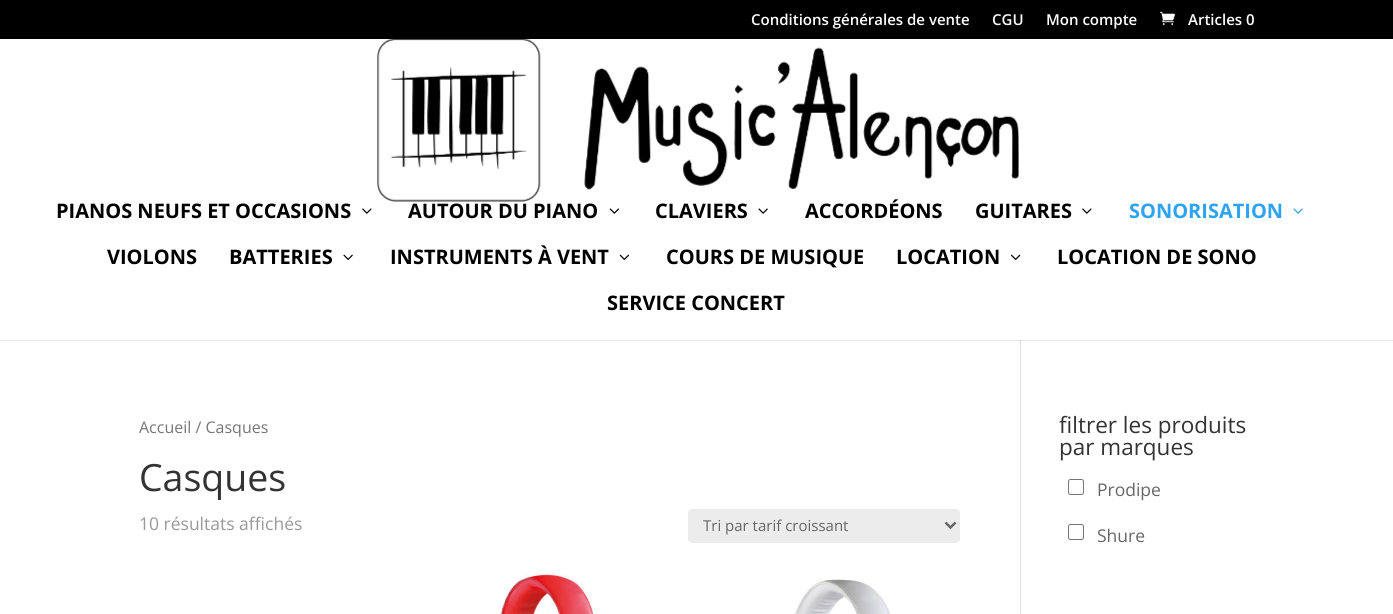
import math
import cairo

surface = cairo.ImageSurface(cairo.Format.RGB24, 1393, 614)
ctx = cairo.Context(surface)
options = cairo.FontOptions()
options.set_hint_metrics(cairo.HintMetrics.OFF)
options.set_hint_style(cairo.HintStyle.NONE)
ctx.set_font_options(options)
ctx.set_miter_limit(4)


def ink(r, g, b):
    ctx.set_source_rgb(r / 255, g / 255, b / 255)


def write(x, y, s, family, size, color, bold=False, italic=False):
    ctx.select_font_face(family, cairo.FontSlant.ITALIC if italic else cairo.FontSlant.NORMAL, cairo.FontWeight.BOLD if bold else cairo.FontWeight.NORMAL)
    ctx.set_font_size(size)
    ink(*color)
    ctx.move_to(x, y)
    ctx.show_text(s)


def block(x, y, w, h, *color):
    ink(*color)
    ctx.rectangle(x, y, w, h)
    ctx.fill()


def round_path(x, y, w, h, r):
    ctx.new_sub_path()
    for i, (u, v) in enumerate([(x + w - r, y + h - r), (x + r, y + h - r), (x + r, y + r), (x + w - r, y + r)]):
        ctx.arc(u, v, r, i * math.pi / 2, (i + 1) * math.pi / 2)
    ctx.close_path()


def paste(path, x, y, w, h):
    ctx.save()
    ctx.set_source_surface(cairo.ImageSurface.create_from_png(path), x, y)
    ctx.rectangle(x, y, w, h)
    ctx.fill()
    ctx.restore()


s1 = dict(family="Open Sans SemiBold", size=15, color=(255, 255, 255))
s2 = dict(family="Open Sans", size=20, color=(0, 0, 0), bold=True)
s3 = dict(family="Open Sans", size=20, color=(46, 163, 242), bold=True)
s4 = dict(family="Open Sans", size=16, color=(118, 118, 118))
s5 = dict(family="Open Sans", size=37.5, color=(51, 51, 51))
s6 = dict(family="Open Sans", size=17.5, color=(153, 153, 153))
s7 = dict(family="Open Sans", size=15, color=(102, 102, 102))
s8 = dict(family="Open Sans", size=22.5, color=(51, 51, 51))
s9 = dict(family="Open Sans", size=17.5, color=(102, 102, 102))

ink(255, 255, 255)
ctx.paint()
block(0, 0, 1393, 39, 0, 0, 0)
write(751, 25, "Conditions générales de vente", **s1)
write(992, 25, "CGU", **s1)
write(1046, 25, "Mon compte", **s1)
paste("pic1.png", 1160, 11, 15, 14)
write(1188, 25, "Articles 0", **s1)
block(1020, 340, 1, 274, 226, 226, 226)
ctx.set_source_rgba(0, 0, 0, 0.1)
ctx.new_path()
ctx.move_to(0, 340)
ctx.line_to(0, 341)
ctx.line_to(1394, 341)
ctx.line_to(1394, 40)
ctx.line_to(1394, 340)
ctx.close_path()
ctx.fill()
paste("pic2.png", 377, 39, 642, 163)
write(56, 218, "PIANOS NEUFS ET OCCASIONS", **s2)
paste("pic3.png", 362, 208, 10, 6)
write(408, 218, "AUTOUR DU PIANO", **s2)
paste("pic4.png", 609, 208, 10, 6)
write(655, 218, "CLAVIERS", **s2)
paste("pic5.png", 758, 208, 10, 6)
write(805, 218, "ACCORDÉONS", **s2)
write(975, 218, "GUITARES", **s2)
paste("pic3.png", 1082, 208, 10, 6)
write(1129, 218, "SONORISATION", **s3)
paste("pic6.png", 1293, 208, 10, 6)
write(107, 264, "VIOLONS", **s2)
write(229, 264, "BATTERIES", **s2)
paste("pic7.png", 343, 254, 10, 6)
write(390, 264, "INSTRUMENTS À VENT", **s2)
paste("pic8.png", 619, 254, 10, 6)
write(666, 264, "COURS DE MUSIQUE", **s2)
write(896, 264, "LOCATION", **s2)
paste("pic9.png", 1011, 254, 10, 6)
write(1057, 264, "LOCATION DE SONO", **s2)
write(607, 310, "SERVICE CONCERT", **s2)
write(139, 433, "Accueil / Casques", **s4)
write(139, 491, "Casques", **s5)
write(139, 530, "10 résultats affichés", **s6)
ink(236, 236, 236)
round_path(688, 509, 272, 34, 4)
ctx.fill()
ctx.new_path()
ctx.move_to(945.5, 522.5)
ctx.line_to(950.5, 527.5)
ctx.line_to(955.5, 522.5)
ink(102, 102, 102)
ctx.set_line_width(2.5)
ctx.stroke()
write(703, 531, "Tri par tarif croissant", **s7)
paste("pic10.png", 499, 574, 97, 40)
paste("pic11.png", 794, 579, 96, 35)
write(1059, 433, "filtrer les produits", **s8)
write(1059, 455, "par marques", **s8)
round_path(1068.5, 479.5, 15, 15, 2)
ink(118, 118, 118)
ctx.set_line_width(1)
ctx.stroke()
write(1097, 496, "Prodipe", **s9)
round_path(1068.5, 524.5, 15, 15, 2)
ink(118, 118, 118)
ctx.stroke()
write(1097, 542, "Shure", **s9)
surface.write_to_png("screenshot.png")
